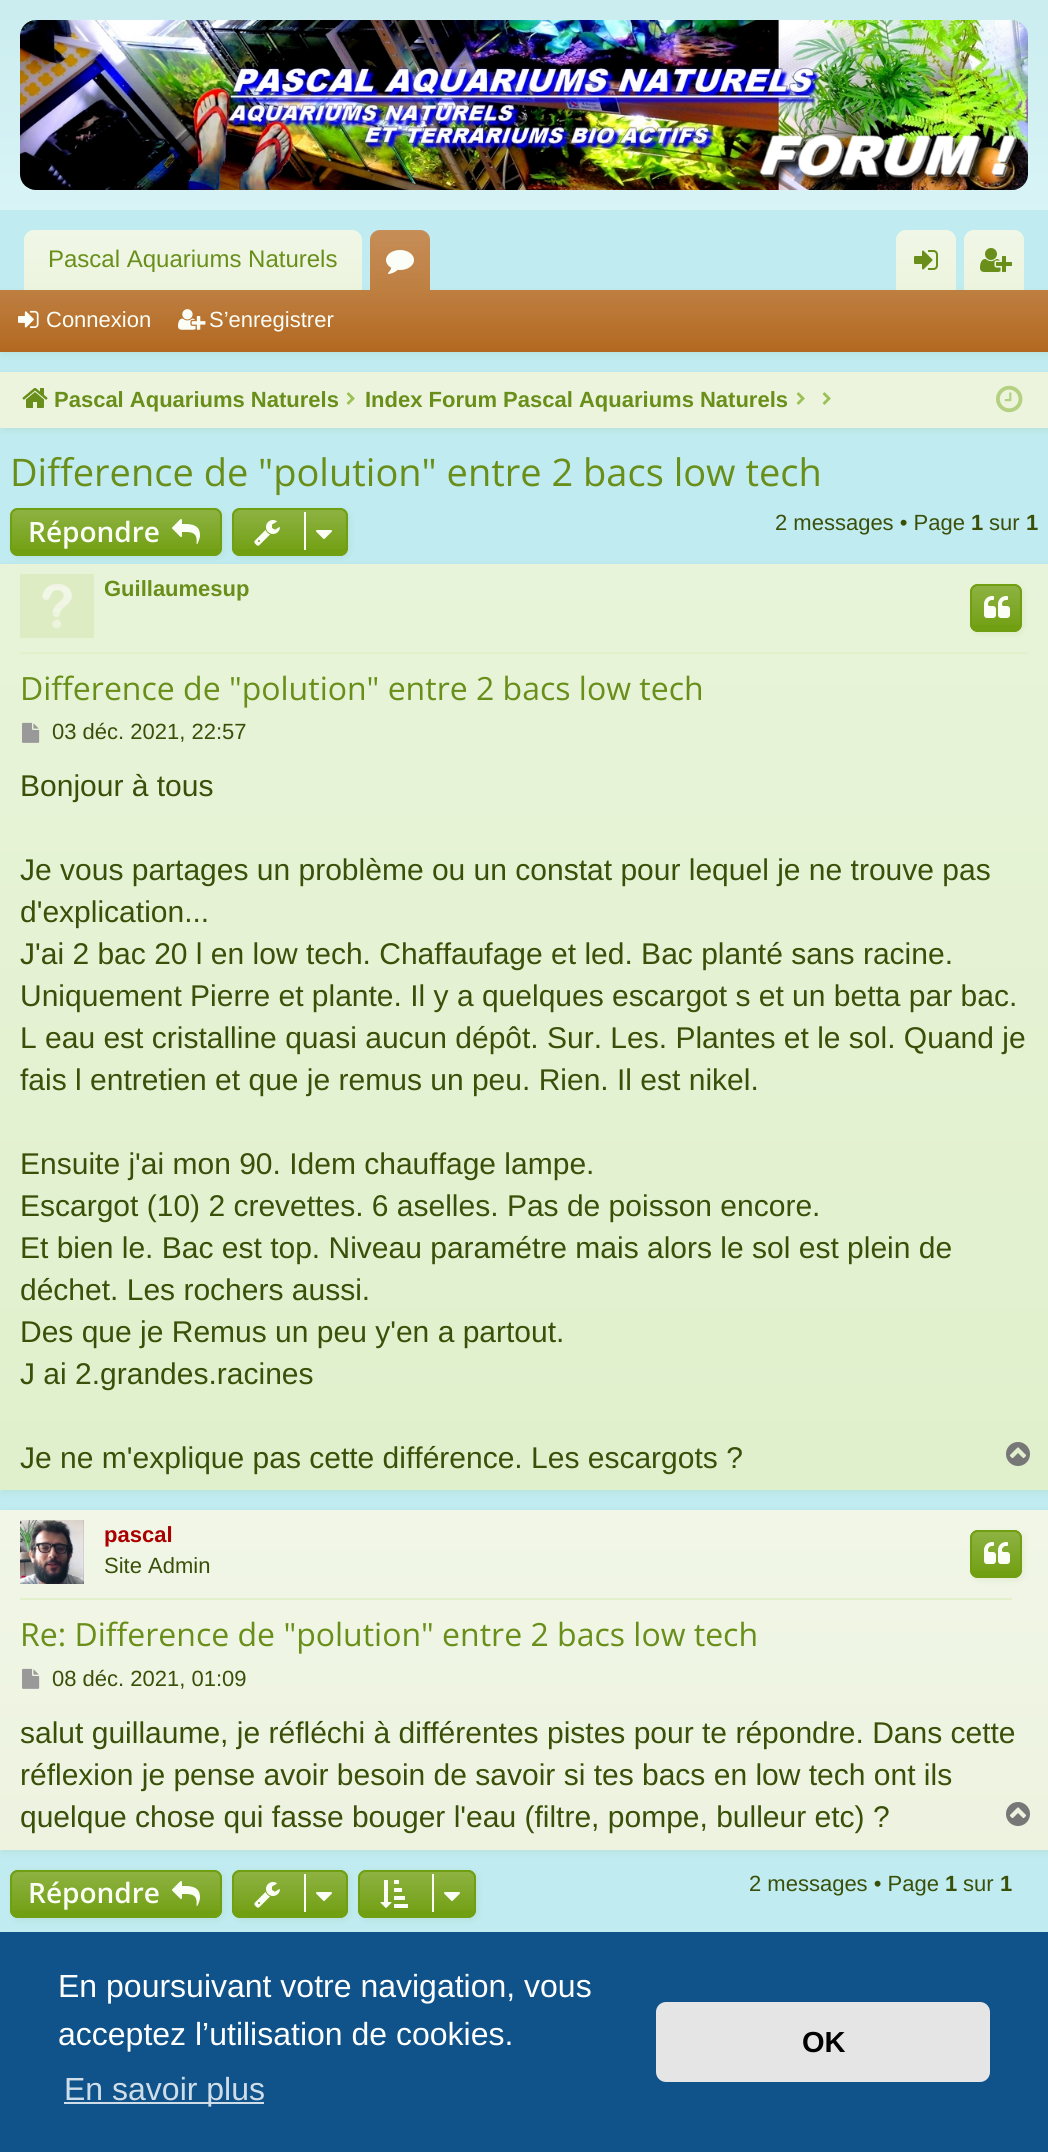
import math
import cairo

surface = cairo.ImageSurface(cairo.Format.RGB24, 1048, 2152)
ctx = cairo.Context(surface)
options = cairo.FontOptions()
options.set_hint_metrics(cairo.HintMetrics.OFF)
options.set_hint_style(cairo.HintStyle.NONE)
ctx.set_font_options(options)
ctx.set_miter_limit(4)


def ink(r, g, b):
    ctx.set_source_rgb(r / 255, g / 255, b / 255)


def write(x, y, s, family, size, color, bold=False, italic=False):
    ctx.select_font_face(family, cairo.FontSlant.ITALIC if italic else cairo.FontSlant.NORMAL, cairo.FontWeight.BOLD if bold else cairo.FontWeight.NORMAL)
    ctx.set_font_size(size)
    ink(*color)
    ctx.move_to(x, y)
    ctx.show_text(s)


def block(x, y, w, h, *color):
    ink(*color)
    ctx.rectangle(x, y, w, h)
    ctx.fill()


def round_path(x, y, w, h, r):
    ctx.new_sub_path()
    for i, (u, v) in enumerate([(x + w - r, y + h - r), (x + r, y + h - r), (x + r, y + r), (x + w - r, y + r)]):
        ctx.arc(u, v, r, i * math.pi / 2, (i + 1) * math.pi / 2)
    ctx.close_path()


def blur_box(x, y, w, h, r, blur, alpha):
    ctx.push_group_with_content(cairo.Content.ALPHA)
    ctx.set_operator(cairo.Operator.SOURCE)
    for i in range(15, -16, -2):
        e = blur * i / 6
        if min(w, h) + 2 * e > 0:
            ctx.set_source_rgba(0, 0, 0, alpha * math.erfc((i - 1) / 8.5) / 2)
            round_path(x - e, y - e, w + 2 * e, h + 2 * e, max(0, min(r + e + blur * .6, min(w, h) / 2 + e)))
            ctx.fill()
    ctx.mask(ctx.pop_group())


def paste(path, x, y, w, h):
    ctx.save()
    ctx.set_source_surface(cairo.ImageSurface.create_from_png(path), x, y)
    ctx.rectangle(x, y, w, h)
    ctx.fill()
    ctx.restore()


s1 = dict(family="Liberation Sans", size=24, color=(105, 143, 26))
s2 = dict(family="Liberation Sans", size=22, color=(251, 254, 246))
s3 = dict(family="Liberation Sans", size=22, color=(105, 143, 26), bold=True)
s4 = dict(family="Open Sans", size=38, color=(105, 143, 26))
s5 = dict(family="Open Sans SemiBold", size=28, color=(251, 254, 246))
s6 = dict(family="Liberation Sans", size=22, color=(58, 80, 9))
s7 = dict(family="Liberation Sans", size=22, color=(58, 80, 9), bold=True)
s8 = dict(family="Open Sans", size=32, color=(105, 143, 26))
s9 = dict(family="Liberation Sans", size=30, color=(58, 80, 9))
s10 = dict(family="Liberation Sans", size=22, color=(170, 0, 0), bold=True)
s11 = dict(family="Liberation Sans", size=32, color=(255, 255, 255))
s12 = dict(family="Liberation Sans", size=32, color=(207, 221, 232))
s13 = dict(family="Liberation Sans", size=29, color=(0, 0, 0), bold=True)

ink(255, 255, 255)
ctx.paint()
gradient = cairo.LinearGradient(524, 0, 524, 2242)
gradient.add_color_stop_rgba(0, 0.796, 0.929, 0.937, 1)
gradient.add_color_stop_rgba(0.18, 0.894, 0.98, 0.992, 1)
gradient.add_color_stop_rgba(1, 1, 1, 1, 1)
ctx.set_source(gradient)
ctx.rectangle(0, 0, 1048, 210)
ctx.fill()
paste("pic1.png", 20, 20, 1008, 170)
block(0, 210, 1048, 1722, 192, 235, 240)
ink(236, 244, 222)
ctx.new_path()
ctx.move_to(34, 230)
ctx.line_to(352, 230)
ctx.curve_to(357.5, 230, 362, 234.5, 362, 240)
ctx.line_to(362, 290)
ctx.line_to(24, 290)
ctx.line_to(24, 240)
ctx.curve_to(24, 234.5, 28.5, 230, 34, 230)
ctx.close_path()
ctx.fill()
gradient = cairo.LinearGradient(193, 230, 193, 290)
gradient.add_color_stop_rgba(0, 1, 1, 1, 0.25)
gradient.add_color_stop_rgba(1, 1, 1, 1, 0)
ctx.set_source(gradient)
ctx.new_path()
ctx.move_to(34, 230)
ctx.line_to(352, 230)
ctx.curve_to(357.5, 230, 362, 234.5, 362, 240)
ctx.line_to(362, 290)
ctx.line_to(24, 290)
ctx.line_to(24, 240)
ctx.curve_to(24, 234.5, 28.5, 230, 34, 230)
ctx.close_path()
ctx.fill()
write(48, 267, "Pascal Aquariums Naturels", **s1)
ink(179, 104, 32)
ctx.new_path()
ctx.move_to(380, 230)
ctx.line_to(420, 230)
ctx.curve_to(425.5, 230, 430, 234.5, 430, 240)
ctx.line_to(430, 290)
ctx.line_to(370, 290)
ctx.line_to(370, 240)
ctx.curve_to(370, 234.5, 374.5, 230, 380, 230)
ctx.close_path()
ctx.fill()
gradient = cairo.LinearGradient(400, 230, 400, 290)
gradient.add_color_stop_rgba(0, 1, 1, 1, 0.25)
gradient.add_color_stop_rgba(1, 1, 1, 1, 0.15)
ctx.set_source(gradient)
ctx.new_path()
ctx.move_to(380, 230)
ctx.line_to(420, 230)
ctx.curve_to(425.5, 230, 430, 234.5, 430, 240)
ctx.line_to(430, 290)
ctx.line_to(370, 290)
ctx.line_to(370, 240)
ctx.curve_to(370, 234.5, 374.5, 230, 380, 230)
ctx.close_path()
ctx.fill()
paste("pic2.png", 386, 250, 28, 24)
ink(236, 244, 222)
ctx.new_path()
ctx.move_to(906, 230)
ctx.line_to(946, 230)
ctx.curve_to(951.5, 230, 956, 234.5, 956, 240)
ctx.line_to(956, 290)
ctx.line_to(896, 290)
ctx.line_to(896, 240)
ctx.curve_to(896, 234.5, 900.5, 230, 906, 230)
ctx.close_path()
ctx.fill()
gradient = cairo.LinearGradient(926, 230, 926, 290)
gradient.add_color_stop_rgba(0, 1, 1, 1, 0.25)
gradient.add_color_stop_rgba(1, 1, 1, 1, 0)
ctx.set_source(gradient)
ctx.new_path()
ctx.move_to(906, 230)
ctx.line_to(946, 230)
ctx.curve_to(951.5, 230, 956, 234.5, 956, 240)
ctx.line_to(956, 290)
ctx.line_to(896, 290)
ctx.line_to(896, 240)
ctx.curve_to(896, 234.5, 900.5, 230, 906, 230)
ctx.close_path()
ctx.fill()
ink(236, 244, 222)
ctx.new_path()
ctx.move_to(974, 230)
ctx.line_to(1014, 230)
ctx.curve_to(1019.5, 230, 1024, 234.5, 1024, 240)
ctx.line_to(1024, 290)
ctx.line_to(964, 290)
ctx.line_to(964, 240)
ctx.curve_to(964, 234.5, 968.5, 230, 974, 230)
ctx.close_path()
ctx.fill()
gradient = cairo.LinearGradient(994, 230, 994, 290)
gradient.add_color_stop_rgba(0, 1, 1, 1, 0.25)
gradient.add_color_stop_rgba(1, 1, 1, 1, 0)
ctx.set_source(gradient)
ctx.new_path()
ctx.move_to(974, 230)
ctx.line_to(1014, 230)
ctx.curve_to(1019.5, 230, 1024, 234.5, 1024, 240)
ctx.line_to(1024, 290)
ctx.line_to(964, 290)
ctx.line_to(964, 240)
ctx.curve_to(964, 234.5, 968.5, 230, 974, 230)
ctx.close_path()
ctx.fill()
ink(105, 143, 26)
blur_box(2, 292, 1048, 62, 0, 3, 0.1)
gradient = cairo.LinearGradient(524, 290, 524, 352)
gradient.add_color_stop_rgba(0, 0.745, 0.498, 0.255, 1)
gradient.add_color_stop_rgba(1, 0.702, 0.408, 0.125, 1)
ctx.set_source(gradient)
ctx.rectangle(0, 290, 1048, 62)
ctx.fill()
ink(179, 104, 32)
ctx.new_path()
ctx.move_to(374, 288)
ctx.line_to(426, 288)
ctx.curve_to(428, 288, 430, 290, 430, 292)
ctx.line_to(370, 292)
ctx.curve_to(370, 290, 372, 288, 374, 288)
ctx.close_path()
ctx.fill()
ctx.set_source_rgba(1, 1, 1, 0.15)
ctx.new_path()
ctx.move_to(374, 288)
ctx.line_to(426, 288)
ctx.curve_to(428, 288, 430, 290, 430, 292)
ctx.line_to(370, 292)
ctx.curve_to(370, 290, 372, 288, 374, 288)
ctx.close_path()
ctx.fill()
paste("pic3.png", 914, 250, 24, 20)
paste("pic4.png", 980, 248, 32, 24)
paste("pic5.png", 18, 310, 21, 18)
write(46, 327, "Connexion", **s2)
paste("pic6.png", 178, 309, 28, 21)
write(209, 327, "S’enregistrer", **s2)
ink(105, 143, 26)
blur_box(2, 374, 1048, 56, 0, 3, 0.1)
block(0, 372, 1048, 56, 236, 244, 222)
paste("pic7.png", 22, 388, 26, 20)
write(54, 407, "Pascal Aquariums Naturels", **s3)
paste("pic8.png", 346, 392, 9, 13)
write(365, 407, "Index Forum Pascal Aquariums Naturels", **s3)
paste("pic8.png", 796, 392, 9, 13)
paste("pic8.png", 822, 392, 9, 13)
paste("pic9.png", 996, 385, 27, 28)
write(10, 486, "Difference de \"polution\" entre 2 bacs low tech", **s4)
ink(105, 143, 26)
blur_box(12, 510, 212, 48, 8, 3, 0.1)
ink(113, 159, 18)
round_path(10, 508, 212, 48, 8)
ctx.fill()
ctx.save()
round_path(10, 508, 212, 48, 8)
ctx.clip()
gradient = cairo.LinearGradient(116, 510, 116, 554)
gradient.add_color_stop_rgba(0, 1, 1, 1, 0.2)
gradient.add_color_stop_rgba(1, 1, 1, 1, 0)
ctx.set_source(gradient)
ctx.rectangle(10, 510, 212, 39)
ctx.fill()
ctx.restore()
round_path(11, 509, 210, 46, 7)
ctx.stroke()
write(28, 542, "Répondre", **s5)
paste("pic10.png", 172, 519, 28, 25)
ink(105, 143, 26)
blur_box(234, 510, 116, 48, 8, 3, 0.1)
ink(113, 159, 18)
round_path(232, 508, 116, 48, 8)
ctx.fill()
ctx.save()
round_path(232, 508, 116, 48, 8)
ctx.clip()
gradient = cairo.LinearGradient(290, 510, 290, 554)
gradient.add_color_stop_rgba(0, 1, 1, 1, 0.2)
gradient.add_color_stop_rgba(1, 1, 1, 1, 0)
ctx.set_source(gradient)
ctx.rectangle(232, 510, 116, 39)
ctx.fill()
ctx.restore()
round_path(233, 509, 114, 46, 7)
ctx.stroke()
paste("pic11.png", 254, 520, 26, 26)
block(304, 512, 2, 38, 251, 254, 246)
paste("pic12.png", 316, 530, 16, 9)
write(775, 530, "2 messages • Page", **s6)
write(971, 530, "1", **s7)
write(989, 530, "sur", **s6)
write(1026, 530, "1", **s7)
ink(105, 143, 26)
blur_box(2, 566, 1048, 926, 0, 3, 0.1)
gradient = cairo.LinearGradient(524, 564, 524, 1490)
gradient.add_color_stop_rgba(0, 0.91, 0.957, 0.851, 1)
gradient.add_color_stop_rgba(1, 0.878, 0.941, 0.8, 1)
ctx.set_source(gradient)
ctx.rectangle(0, 564, 1048, 926)
ctx.fill()
block(20, 652, 1008, 2, 226, 241, 203)
paste("pic13.png", 20, 574, 74, 64)
write(104, 596, "Guillaumesup", **s3)
ink(105, 143, 26)
blur_box(972, 586, 52, 48, 8, 3, 0.1)
ink(113, 159, 18)
round_path(970, 584, 52, 48, 8)
ctx.fill()
ctx.save()
round_path(970, 584, 52, 48, 8)
ctx.clip()
gradient = cairo.LinearGradient(996, 586, 996, 630)
gradient.add_color_stop_rgba(0, 1, 1, 1, 0.2)
gradient.add_color_stop_rgba(1, 1, 1, 1, 0)
ctx.set_source(gradient)
ctx.rectangle(970, 586, 52, 39)
ctx.fill()
ctx.restore()
round_path(971, 585, 50, 46, 7)
ctx.stroke()
paste("pic14.png", 984, 596, 26, 22)
write(20, 700, "Difference de \"polution\" entre 2 bacs low tech", **s8)
paste("pic15.png", 22, 722, 18, 21)
write(52, 739, "03 déc. 2021, 22:57", **s6)
write(20, 796, "Bonjour à tous", **s9)
write(20, 880, "Je vous partages un problème ou un constat pour lequel je ne trouve pas", **s9)
write(20, 922, "d'explication...", **s9)
write(20, 964, "J'ai 2 bac 20 l en low tech. Chaffaufage et led. Bac planté sans racine.", **s9)
write(20, 1006, "Uniquement Pierre et plante. Il y a quelques escargot s et un betta par bac.", **s9)
write(20, 1048, "L eau est cristalline quasi aucun dépôt. Sur. Les. Plantes et le sol. Quand je", **s9)
write(20, 1090, "fais l entretien et que je remus un peu. Rien. Il est nikel.", **s9)
write(20, 1174, "Ensuite j'ai mon 90. Idem chauffage lampe.", **s9)
write(20, 1216, "Escargot (10) 2 crevettes. 6 aselles. Pas de poisson encore.", **s9)
write(20, 1258, "Et bien le. Bac est top. Niveau paramétre mais alors le sol est plein de", **s9)
write(20, 1300, "déchet. Les rochers aussi.", **s9)
write(20, 1342, "Des que je Remus un peu y'en a partout.", **s9)
write(20, 1384, "J ai 2.grandes.racines", **s9)
write(20, 1468, "Je ne m'explique pas cette différence. Les escargots ?", **s9)
paste("pic16.png", 1006, 1442, 24, 24)
ink(105, 143, 26)
blur_box(2, 1512, 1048, 340, 0, 3, 0.1)
gradient = cairo.LinearGradient(524, 1510, 524, 1850)
gradient.add_color_stop_rgba(0, 0.945, 0.965, 0.906, 1)
gradient.add_color_stop_rgba(1, 0.929, 0.953, 0.875, 1)
ctx.set_source(gradient)
ctx.rectangle(0, 1510, 1048, 340)
ctx.fill()
block(20, 1598, 992, 2, 226, 241, 203)
paste("pic17.png", 20, 1520, 64, 64)
write(104, 1542, "pascal", **s10)
write(104, 1573, "Site Admin", **s6)
ink(105, 143, 26)
blur_box(972, 1532, 52, 48, 8, 3, 0.1)
ink(113, 159, 18)
round_path(970, 1530, 52, 48, 8)
ctx.fill()
ctx.save()
round_path(970, 1530, 52, 48, 8)
ctx.clip()
gradient = cairo.LinearGradient(996, 1532, 996, 1576)
gradient.add_color_stop_rgba(0, 1, 1, 1, 0.2)
gradient.add_color_stop_rgba(1, 1, 1, 1, 0)
ctx.set_source(gradient)
ctx.rectangle(970, 1532, 52, 39)
ctx.fill()
ctx.restore()
round_path(971, 1531, 50, 46, 7)
ctx.stroke()
paste("pic14.png", 984, 1542, 26, 22)
write(20, 1646, "Re: Difference de \"polution\" entre 2 bacs low tech", **s8)
paste("pic18.png", 22, 1668, 18, 21)
write(52, 1686, "08 déc. 2021, 01:09", **s6)
write(20, 1743, "salut guillaume, je réfléchi à différentes pistes pour te répondre. Dans cette", **s9)
write(20, 1785, "réflexion je pense avoir besoin de savoir si tes bacs en low tech ont ils", **s9)
write(20, 1827, "quelque chose qui fasse bouger l'eau (filtre, pompe, bulleur etc) ?", **s9)
paste("pic19.png", 1006, 1802, 24, 24)
ink(105, 143, 26)
blur_box(12, 1872, 212, 48, 8, 3, 0.1)
ink(113, 159, 18)
round_path(10, 1870, 212, 48, 8)
ctx.fill()
ctx.save()
round_path(10, 1870, 212, 48, 8)
ctx.clip()
gradient = cairo.LinearGradient(116, 1872, 116, 1916)
gradient.add_color_stop_rgba(0, 1, 1, 1, 0.2)
gradient.add_color_stop_rgba(1, 1, 1, 1, 0)
ctx.set_source(gradient)
ctx.rectangle(10, 1872, 212, 39)
ctx.fill()
ctx.restore()
round_path(11, 1871, 210, 46, 7)
ctx.stroke()
write(28, 1903, "Répondre", **s5)
paste("pic10.png", 172, 1881, 28, 25)
ink(105, 143, 26)
blur_box(234, 1872, 116, 48, 8, 3, 0.1)
ink(113, 159, 18)
round_path(232, 1870, 116, 48, 8)
ctx.fill()
ctx.save()
round_path(232, 1870, 116, 48, 8)
ctx.clip()
gradient = cairo.LinearGradient(290, 1872, 290, 1916)
gradient.add_color_stop_rgba(0, 1, 1, 1, 0.2)
gradient.add_color_stop_rgba(1, 1, 1, 1, 0)
ctx.set_source(gradient)
ctx.rectangle(232, 1872, 116, 39)
ctx.fill()
ctx.restore()
round_path(233, 1871, 114, 46, 7)
ctx.stroke()
paste("pic11.png", 254, 1882, 26, 26)
block(304, 1874, 2, 38, 251, 254, 246)
paste("pic12.png", 316, 1892, 16, 9)
ink(105, 143, 26)
blur_box(360, 1872, 118, 48, 8, 3, 0.1)
ink(113, 159, 18)
round_path(358, 1870, 118, 48, 8)
ctx.fill()
ctx.save()
round_path(358, 1870, 118, 48, 8)
ctx.clip()
gradient = cairo.LinearGradient(417, 1872, 417, 1916)
gradient.add_color_stop_rgba(0, 1, 1, 1, 0.2)
gradient.add_color_stop_rgba(1, 1, 1, 1, 0)
ctx.set_source(gradient)
ctx.rectangle(358, 1872, 118, 39)
ctx.fill()
ctx.restore()
round_path(359, 1871, 116, 46, 7)
ctx.stroke()
paste("pic20.png", 380, 1880, 28, 28)
block(432, 1874, 2, 38, 251, 254, 246)
paste("pic12.png", 444, 1892, 16, 9)
write(749, 1891, "2 messages • Page", **s6)
write(945, 1891, "1", **s7)
write(963, 1891, "sur", **s6)
write(1000, 1891, "1", **s7)
block(0, 1932, 1048, 220, 15, 83, 138)
write(58, 1997, "En poursuivant votre navigation, vous", **s11)
write(58, 2045, "acceptez l’utilisation de cookies.", **s11)
block(64, 2102, 200, 2, 207, 221, 232)
write(64, 2100, "En savoir plus", **s12)
ink(229, 229, 229)
round_path(656, 2002, 334, 80, 10)
ctx.fill()
write(802, 2052, "OK", **s13)
surface.write_to_png("screenshot.png")
